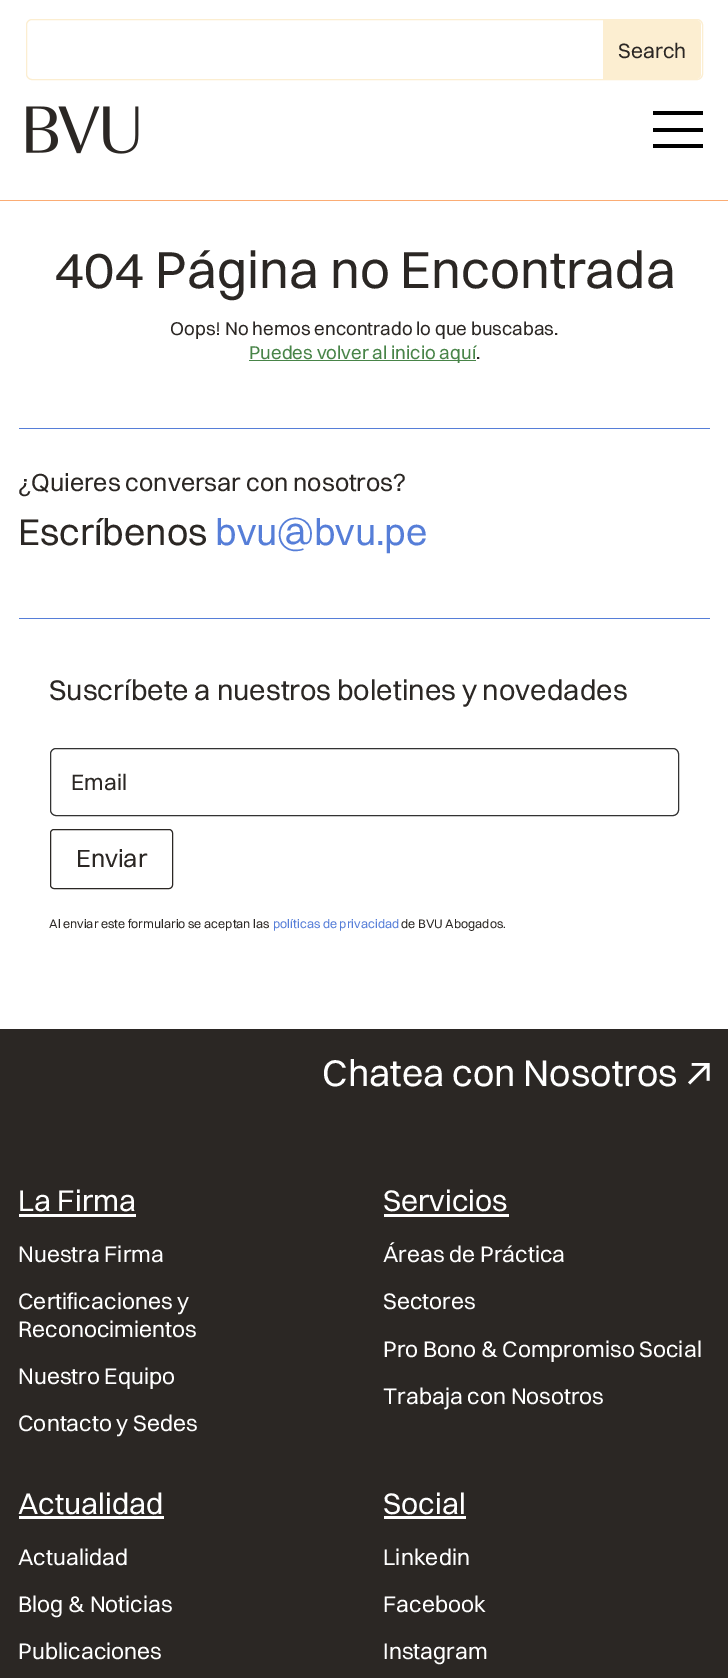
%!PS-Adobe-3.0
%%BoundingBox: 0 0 728 1678
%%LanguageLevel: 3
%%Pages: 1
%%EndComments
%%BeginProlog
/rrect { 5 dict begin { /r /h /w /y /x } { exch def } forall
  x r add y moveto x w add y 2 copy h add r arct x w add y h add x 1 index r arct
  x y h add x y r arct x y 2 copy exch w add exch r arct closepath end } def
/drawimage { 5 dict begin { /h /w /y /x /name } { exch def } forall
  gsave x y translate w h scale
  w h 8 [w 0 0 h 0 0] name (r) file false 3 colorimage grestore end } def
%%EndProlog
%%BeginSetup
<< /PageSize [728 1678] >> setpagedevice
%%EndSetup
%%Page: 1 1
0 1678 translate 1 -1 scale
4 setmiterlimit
1 setgray
0 0 728 1678 rectfill
0.988 0.933 0.82 setrgbcolor
26.5 19.5 676 60 5.5 rrect stroke
newpath 603 20 moveto 696 20 lineto 699 20 701 22 701 25 curveto 701 74 lineto 701 77 699 79 696 79 curveto 603 79 lineto closepath fill
(images/1.raw) 26 106 113 48 drawimage
0 setgray
653 111 50 4 rectfill
653 128 50 4 rectfill
653 144 50 4 rectfill
0.984 0.675 0.455 setrgbcolor
0 200 728 1 rectfill
0.282 0.518 0.282 setrgbcolor
249 360 227 1 rectfill
0.337 0.494 0.847 setrgbcolor
19 428 691 1 rectfill
19 618 691 1 rectfill
0.2 setgray
50.5 748.5 628 67 5.5 rrect stroke
0.169 0.153 0.141 setrgbcolor
50.5 829.5 122 59 3.5 rrect stroke
0 1029 728 649 rectfill
(images/2.raw) 688 1063 22 22 drawimage
1 setgray
19 1214 117 3 rectfill
384 1214 125 3 rectfill
19 1516 145 3 rectfill
384 1516 82 3 rectfill
/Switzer-Regular [21 0 0 -21 0 0] selectfont
0.169 0.153 0.141 setrgbcolor
618 58 moveto (Search) show
/Switzer-Regular [52.5 0 0 -52.5 0 0] selectfont
54 288 moveto (404 Página no Encontrada) show
/Switzer-Regular [18.75 0 0 -18.75 0 0] selectfont
170 335 moveto (Oops! No hemos encontrado lo que buscabas.) show
0.282 0.518 0.282 setrgbcolor
249 359 moveto (Puedes volver al inicio aquí) show
0.169 0.153 0.141 setrgbcolor
476 359 moveto (.) show
/Switzer-Regular [25 0 0 -25 0 0] selectfont
18 491 moveto (¿Quieres conversar con nosotros?) show
/Switzer-Regular [37.5 0 0 -37.5 0 0] selectfont
18 545 moveto (Escríbenos) show
0.337 0.494 0.847 setrgbcolor
215 545 moveto (bvu@bvu.pe) show
/Switzer-Regular [28.75 0 0 -28.75 0 0] selectfont
0.169 0.153 0.141 setrgbcolor
49 700 moveto (Suscríbete a nuestros boletines y novedades) show
/Switzer-Regular [22.5 0 0 -22.5 0 0] selectfont
71 790 moveto (Email) show
/Switzer-Regular [25 0 0 -25 0 0] selectfont
76 867 moveto (Enviar) show
/Switzer-Regular [12.5 0 0 -12.5 0 0] selectfont
49 928 moveto (Al enviar este formulario se aceptan las) show
0.337 0.494 0.847 setrgbcolor
273 928 moveto (políticas de privacidad) show
0.169 0.153 0.141 setrgbcolor
401 928 moveto (de BVU Abogados.) show
/Switzer-Regular [37.5 0 0 -37.5 0 0] selectfont
1 setgray
322 1086 moveto (Chatea con Nosotros) show
/Switzer-Regular [30 0 0 -30 0 0] selectfont
18 1211 moveto (La Firma) show
/Switzer-Regular [22.75 0 0 -22.75 0 0] selectfont
18 1262 moveto (Nuestra Firma) show
18 1309 moveto (Certificaciones y) show
18 1337 moveto (Reconocimientos) show
18 1384 moveto (Nuestro Equipo) show
18 1431 moveto (Contacto y Sedes) show
/Switzer-Regular [30 0 0 -30 0 0] selectfont
383 1211 moveto (Servicios) show
/Switzer-Regular [22.75 0 0 -22.75 0 0] selectfont
383 1262 moveto (Áreas de Práctica) show
383 1309 moveto (Sectores) show
383 1357 moveto (Pro Bono & Compromiso Social) show
383 1404 moveto (Trabaja con Nosotros) show
/Switzer-Regular [30 0 0 -30 0 0] selectfont
18 1514 moveto (Actualidad) show
/Switzer-Regular [22.75 0 0 -22.75 0 0] selectfont
18 1565 moveto (Actualidad) show
18 1612 moveto (Blog & Noticias) show
18 1659 moveto (Publicaciones) show
/Switzer-Regular [30 0 0 -30 0 0] selectfont
383 1514 moveto (Social) show
/Switzer-Regular [22.75 0 0 -22.75 0 0] selectfont
383 1565 moveto (Linkedin) show
383 1612 moveto (Facebook) show
383 1659 moveto (Instagram) show
showpage
%%EOF
